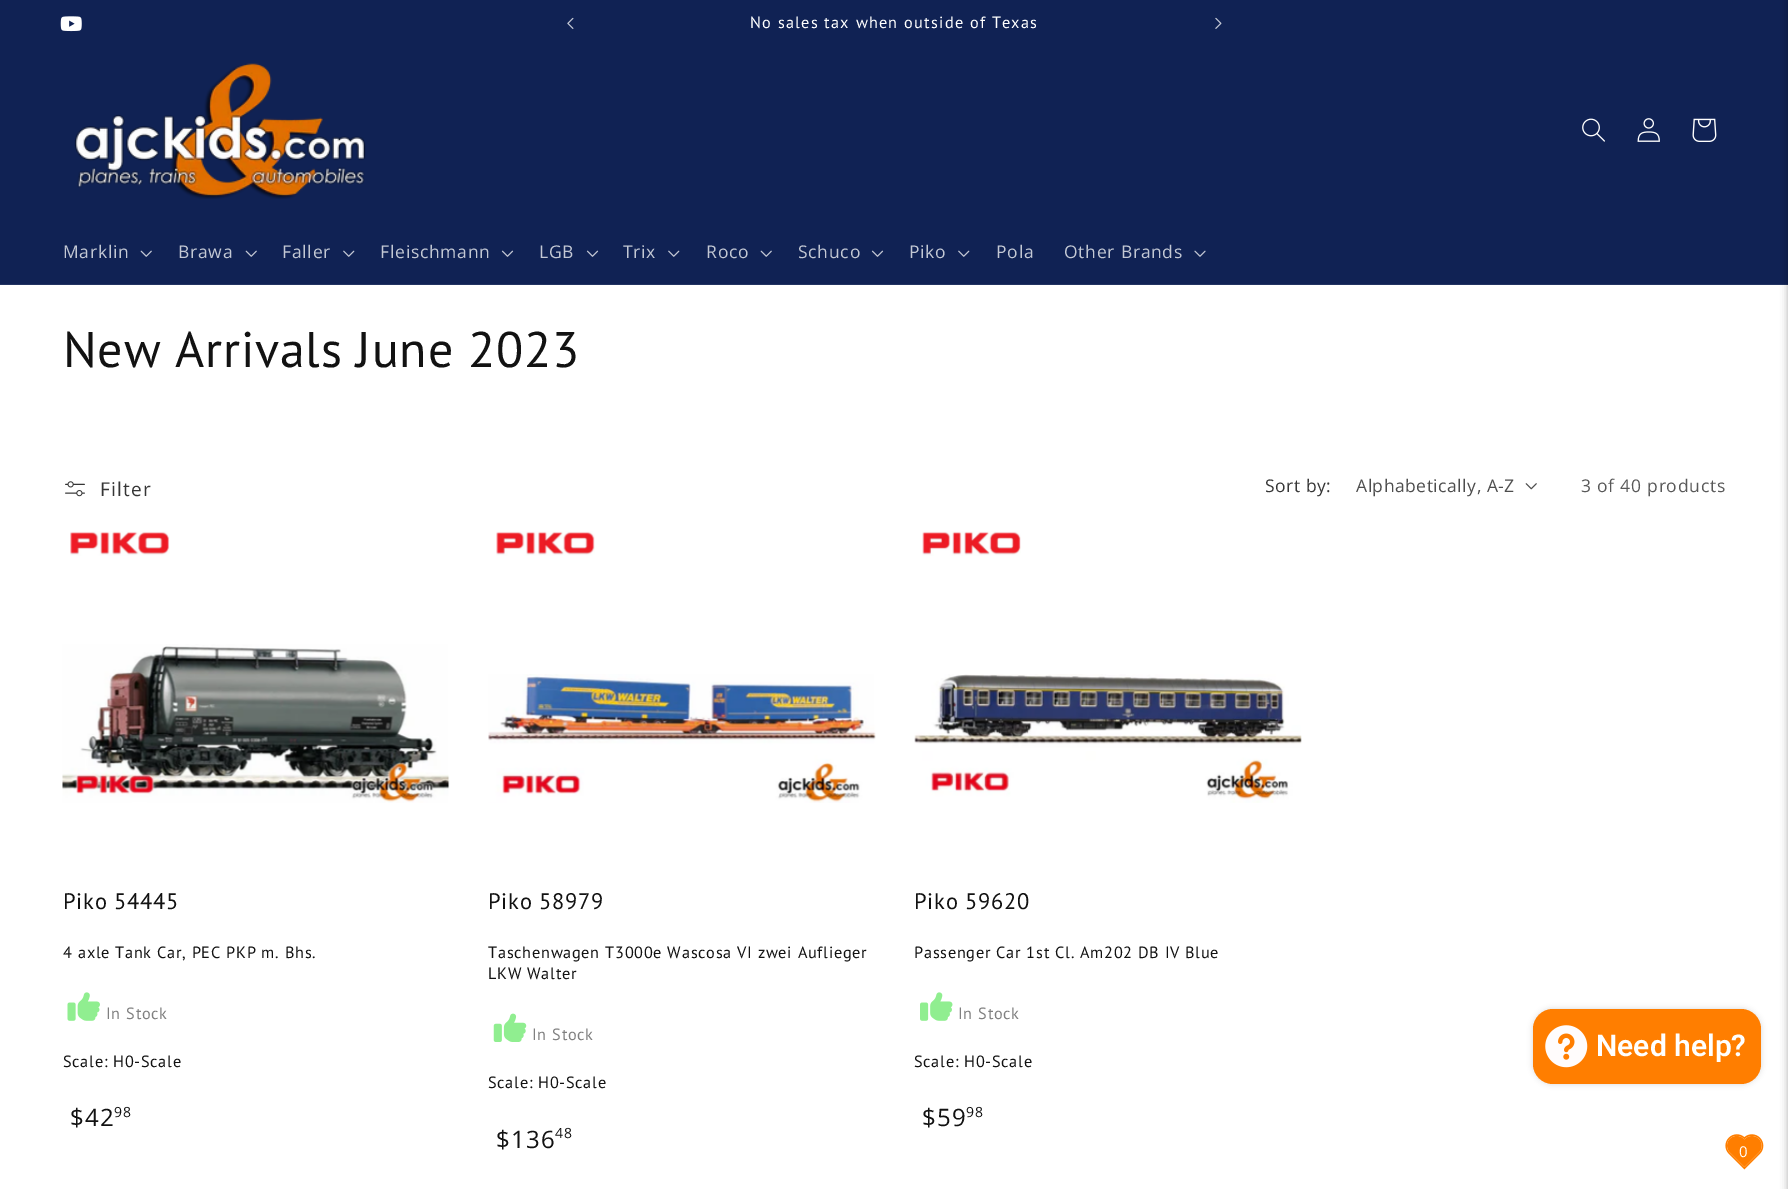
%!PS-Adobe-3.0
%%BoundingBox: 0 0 1788 1189
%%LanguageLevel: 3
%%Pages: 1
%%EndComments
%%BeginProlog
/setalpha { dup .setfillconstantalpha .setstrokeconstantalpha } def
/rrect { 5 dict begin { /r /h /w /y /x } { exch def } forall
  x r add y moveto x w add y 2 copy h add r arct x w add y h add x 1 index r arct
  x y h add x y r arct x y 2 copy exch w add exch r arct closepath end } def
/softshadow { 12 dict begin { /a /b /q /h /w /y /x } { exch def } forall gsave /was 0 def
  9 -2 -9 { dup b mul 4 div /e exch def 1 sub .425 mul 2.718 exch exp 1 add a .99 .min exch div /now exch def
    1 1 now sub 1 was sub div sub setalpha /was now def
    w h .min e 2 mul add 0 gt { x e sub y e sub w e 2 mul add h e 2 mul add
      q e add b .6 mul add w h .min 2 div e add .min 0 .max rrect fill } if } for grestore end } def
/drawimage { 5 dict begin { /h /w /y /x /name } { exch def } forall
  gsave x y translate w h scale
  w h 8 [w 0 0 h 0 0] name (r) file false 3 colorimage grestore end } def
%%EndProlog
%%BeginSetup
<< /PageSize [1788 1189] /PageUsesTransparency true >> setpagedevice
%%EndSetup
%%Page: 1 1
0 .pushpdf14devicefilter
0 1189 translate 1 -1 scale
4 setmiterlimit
1 setgray
0 0 1788 1189 rectfill
0.063 0.133 0.329 setrgbcolor
0 0 1788 284 rectfill
(images/1.raw) 60 16 22 16 drawimage
(images/2.raw) 567 17 7 12 drawimage
(images/3.raw) 1215 17 7 12 drawimage
0.137 0.204 0.384 setrgbcolor
0 284 1788 1 rectfill
(images/4.raw) 74 63 292 136 drawimage
(images/5.raw) 1582 118 23 24 drawimage
(images/6.raw) 1637 118 23 24 drawimage
(images/7.raw) 1692 118 25 24 drawimage
(images/8.raw) 140 250 12 7 drawimage
(images/8.raw) 245 250 12 7 drawimage
(images/9.raw) 343 250 12 7 drawimage
(images/10.raw) 501 250 13 7 drawimage
(images/10.raw) 586 250 13 7 drawimage
(images/9.raw) 668 250 12 7 drawimage
(images/8.raw) 760 250 12 7 drawimage
(images/10.raw) 871 250 13 7 drawimage
(images/9.raw) 958 250 12 7 drawimage
(images/11.raw) 1194 250 12 7 drawimage
(images/12.raw) 65 481 20 16 drawimage
(images/13.raw) 1525 483 12 7 drawimage
(images/14.raw) 70 531 100 25 drawimage
(images/15.raw) 62 644 388 159 drawimage
(images/16.raw) 67 992 33 29 drawimage
(images/17.raw) 496 531 99 25 drawimage
(images/18.raw) 488 674 388 129 drawimage
(images/19.raw) 493 1013 34 29 drawimage
(images/20.raw) 922 531 99 25 drawimage
(images/21.raw) 914 674 388 129 drawimage
(images/22.raw) 920 992 33 29 drawimage
0 setgray
1533 1009 228 75 20 3 0.15 softshadow
1 0.494 0 setrgbcolor
1533 1009 228 75 20 rrect fill
(images/23.raw) 1545 1025 43 43 drawimage
(images/24.raw) 1725 1134 39 36 drawimage
0 setgray
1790 0 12 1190 0 4.5 0.5 softshadow
/PTSans-Regular [16.25 0 0 -16.25 0 0] selectfont
1 setgray
750 28 moveto 1.25 0 (No sales tax when outside of Texas) ashow
/OpenSans-Regular [17.5 0 0 -17.5 0 0] selectfont
0.765 0.784 0.831 setrgbcolor
63 258 moveto 0.75 0 (Marklin) ashow
178 258 moveto 0.75 0 (Brawa) ashow
282 258 moveto 0.75 0 (Faller) ashow
380 258 moveto 0.75 0 (Fleischmann) ashow
539 258 moveto 0.75 0 (LGB) ashow
623 258 moveto 0.75 0 (Trix) ashow
706 258 moveto 0.75 0 (Roco) ashow
798 258 moveto 0.75 0 (Schuco) ashow
909 258 moveto 0.75 0 (Piko) ashow
996 258 moveto 0.75 0 (Pola) ashow
1064 258 moveto 0.75 0 (Other Brands) ashow
/PTSans-Regular [50 0 0 -50 0 0] selectfont
0.071 setgray
63 367 moveto 0.75 0 (New Arrivals June 2023) ashow
/OpenSans-Regular [19 0 0 -19 0 0] selectfont
0.212 setgray
100 496 moveto 1.25 0 (Filter) ashow
/OpenSans-Regular [17.5 0 0 -17.5 0 0] selectfont
1265 492 moveto 0.5 0 (Sort by:) ashow
0.302 setgray
1356 492 moveto 0.5 0 (Alphabetically, A-Z) ashow
0.349 setgray
1581 492 moveto 0.75 0 (3 of 40 products) ashow
/PTSans-Regular [22.5 0 0 -22.5 0 0] selectfont
0.071 setgray
63 909 moveto 0.75 0 (Piko 54445) ashow
/PTSans-Regular [16.25 0 0 -16.25 0 0] selectfont
63 958 moveto 0.75 0 (4 axle Tank Car, PEC PKP m. Bhs.) ashow
0.502 setgray
106 1019 moveto 0.75 0 (In Stock) ashow
0.071 setgray
63 1067 moveto 0.75 0 (Scale: H0-Scale) ashow
/OpenSans-Regular [24 0 0 -24 0 0] selectfont
70 1126 moveto 1.25 0 ($42) ashow
/OpenSans-Regular [14 0 0 -14 0 0] selectfont
114 1117 moveto 1.25 0 (98) ashow
/PTSans-Regular [22.5 0 0 -22.5 0 0] selectfont
488 909 moveto 0.75 0 (Piko 58979) ashow
/PTSans-Regular [16.25 0 0 -16.25 0 0] selectfont
488 958 moveto 0.75 0 (Taschenwagen T3000e Wascosa VI zwei Auflieger) ashow
488 979 moveto 0.75 0 (LKW Walter) ashow
0.502 setgray
532 1040 moveto 0.75 0 (In Stock) ashow
0.071 setgray
488 1088 moveto 0.75 0 (Scale: H0-Scale) ashow
/OpenSans-Regular [24 0 0 -24 0 0] selectfont
496 1148 moveto 1.25 0 ($136) ashow
/OpenSans-Regular [14 0 0 -14 0 0] selectfont
555 1138 moveto 1.25 0 (48) ashow
/PTSans-Regular [22.5 0 0 -22.5 0 0] selectfont
914 909 moveto 0.75 0 (Piko 59620) ashow
/PTSans-Regular [16.25 0 0 -16.25 0 0] selectfont
914 958 moveto 0.75 0 (Passenger Car 1st Cl. Am202 DB IV Blue) ashow
0.502 setgray
958 1019 moveto 0.75 0 (In Stock) ashow
0.071 setgray
914 1067 moveto 0.75 0 (Scale: H0-Scale) ashow
/OpenSans-Regular [24 0 0 -24 0 0] selectfont
922 1126 moveto 1.25 0 ($59) ashow
/OpenSans-Regular [14 0 0 -14 0 0] selectfont
966 1117 moveto 1.25 0 (98) ashow
/Roboto-SemiBold [30 0 0 -30 0 0] selectfont
1 setgray
1596 1056 moveto (Need help?) show
/OpenSans-Regular [15 0 0 -15 0 0] selectfont
1739 1157 moveto 0.75 0 (0) ashow
.poppdf14devicefilter showpage
%%EOF
